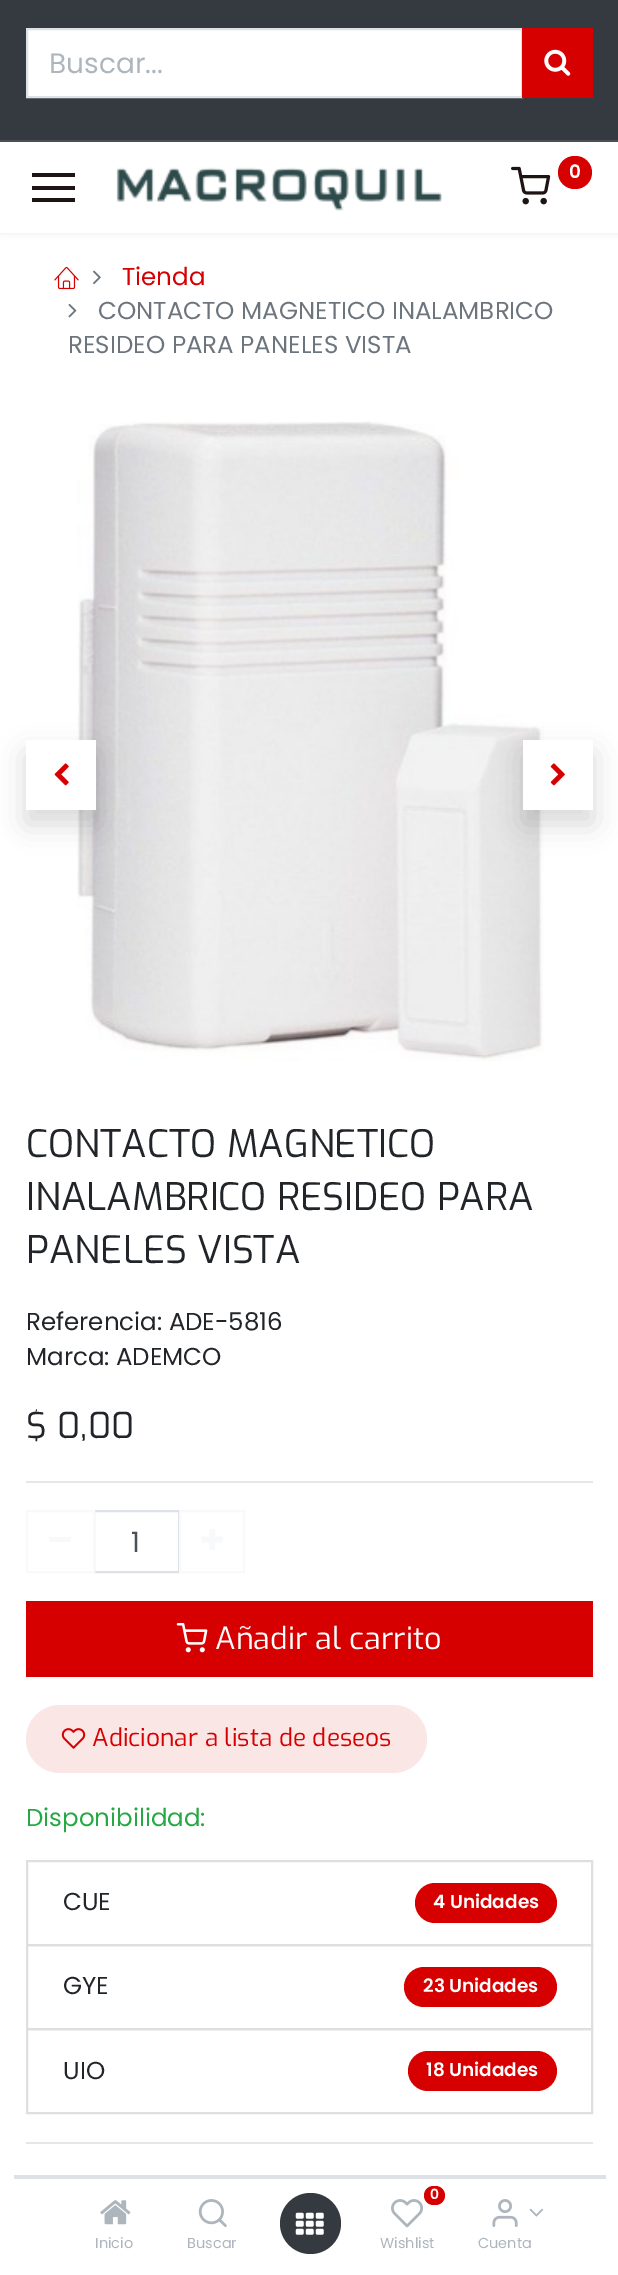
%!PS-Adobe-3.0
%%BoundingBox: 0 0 618 2275
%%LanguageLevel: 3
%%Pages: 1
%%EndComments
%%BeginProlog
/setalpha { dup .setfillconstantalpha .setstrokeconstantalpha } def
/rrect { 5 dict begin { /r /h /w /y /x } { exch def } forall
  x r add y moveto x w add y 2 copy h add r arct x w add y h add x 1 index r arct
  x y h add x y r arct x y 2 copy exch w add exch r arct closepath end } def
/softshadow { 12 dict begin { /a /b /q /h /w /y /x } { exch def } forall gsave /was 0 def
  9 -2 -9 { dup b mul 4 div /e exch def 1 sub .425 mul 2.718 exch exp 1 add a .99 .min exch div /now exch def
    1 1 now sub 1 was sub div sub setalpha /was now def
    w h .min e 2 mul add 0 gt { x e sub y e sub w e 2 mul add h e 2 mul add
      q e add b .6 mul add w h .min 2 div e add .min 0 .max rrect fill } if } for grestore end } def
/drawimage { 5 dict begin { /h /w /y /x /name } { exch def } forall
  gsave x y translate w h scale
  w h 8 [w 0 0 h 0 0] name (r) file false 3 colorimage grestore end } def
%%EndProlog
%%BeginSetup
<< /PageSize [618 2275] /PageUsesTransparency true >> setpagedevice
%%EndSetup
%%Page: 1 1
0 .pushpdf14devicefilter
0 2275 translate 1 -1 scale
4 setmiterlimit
1 setgray
0 0 618 2275 rectfill
0.204 0.227 0.251 setrgbcolor
0 0 618 140 rectfill
0.298 0.322 0.341 setrgbcolor
0 140 618 2 rectfill
1 setgray
newpath 27 29 moveto 522 29 lineto 522 97 lineto 27 97 lineto closepath gsave fill grestore
0.871 0.886 0.902 setrgbcolor
2 setlinewidth
stroke
0.839 0 0 setrgbcolor
522 28 71 70 rectfill
(images/1.raw) 544 49 27 27 drawimage
0 setgray
0 142 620 91 0 3.5 0.07 softshadow
1 setgray
0 142 618 91 rectfill
0.122 0.078 0.078 setrgbcolor
32 173 43 4 rectfill
32 186 43 4 rectfill
32 198 43 4 rectfill
(images/2.raw) 116 167 326 44 drawimage
(images/3.raw) 511 166 40 39 drawimage
0.839 0 0 setrgbcolor
558 156 34 33 16.5 rrect fill
(images/4.raw) 54 266 25 24 drawimage
(images/5.raw) 93 270 8 15 drawimage
(images/6.raw) 68 303 9 15 drawimage
(images/8.raw) 77 421 467 640 drawimage
0 setgray
26 754 70 70 0 14 0.15 softshadow
1 setgray
26 740 70 70 rectfill
(images/7.raw) 54 763 15 23 drawimage
0 setgray
523 754 70 70 0 14 0.15 softshadow
1 setgray
523 740 70 70 rectfill
(images/9.raw) 550 763 15 23 drawimage
0.902 setgray
26 1481 567 2 rectfill
0.871 0.886 0.902 setrgbcolor
94 1511 85 61 rectstroke
0.973 0.976 0.98 setrgbcolor
27 1511 67 61 rectstroke
49 1537 22 5 rectfill
180 1511 64 61 rectstroke
(images/10.raw) 201 1529 22 21 drawimage
0.839 0 0 setrgbcolor
26 1601 567 76 rectfill
(images/11.raw) 176 1623 32 30 drawimage
0.984 0.902 0.902 setrgbcolor
26 1705 401 68 34 rrect fill
(images/12.raw) 61 1728 25 21 drawimage
0.875 setgray
27 1861 565 84 rectstroke
0.839 0 0 setrgbcolor
415 1883 142 40 20 rrect fill
0.875 setgray
27 1945 565 84 rectstroke
0.839 0 0 setrgbcolor
404 1967 153 40 20 rrect fill
0.875 setgray
27 2029 565 84 rectstroke
0.839 0 0 setrgbcolor
408 2051 149 40 20 rrect fill
0.902 setgray
26 2142 567 2 rectfill
0.871 0.886 0.902 setrgbcolor
14 2175 592 4 rectfill
(images/13.raw) 100 2200 31 25 drawimage
(images/14.raw) 198 2199 29 28 drawimage
0.204 0.227 0.251 setrgbcolor
newpath 310.5 2223.5 30.5 0 360 arc closepath fill
(images/15.raw) 295 2212 29 23 drawimage
0.839 0 0 setrgbcolor
424 2186 21 19 9.5 rrect fill
(images/16.raw) 391 2199 33 29 drawimage
(images/17.raw) 492 2199 26 28 drawimage
(images/18.raw) 529 2208 15 9 drawimage
/Poppins-Regular [28 0 0 -28 0 0] selectfont
0.678 0.71 0.741 setrgbcolor
49 73 moveto (Buscar...) show
/Poppins-SemiBold [18.5 0 0 -18.5 0 0] selectfont
1 setgray
569 178 moveto (0) show
/Poppins-Regular [24.5 0 0 -24.5 0 0] selectfont
0.839 0 0 setrgbcolor
122 285 moveto (Tienda) show
0.424 0.459 0.49 setrgbcolor
98 319 moveto (CONTACTO MAGNETICO INALAMBRICO) show
68 353 moveto (RESIDEO PARA PANELES VISTA) show
/Exo-Regular [37.9 0 0 -37.9 0 0] selectfont
0.129 0.145 0.161 setrgbcolor
26 1157 moveto (CONTACTO MAGNETICO) show
26 1210 moveto (INALAMBRICO RESIDEO PARA) show
26 1263 moveto (PANELES VISTA) show
/Poppins-Regular [24.5 0 0 -24.5 0 0] selectfont
26 1330 moveto (Referencia: ADE-5816) show
26 1365 moveto (Marca: ADEMCO) show
/Exo-Regular [35.5 0 0 -35.5 0 0] selectfont
26 1438 moveto ($ 0,00) show
/Poppins-Regular [28 0 0 -28 0 0] selectfont
0.286 0.314 0.341 setrgbcolor
131 1552 moveto (1) show
/Exo-Regular [30.5 0 0 -30.5 0 0] selectfont
1 setgray
215 1649 moveto (Añadir al carrito) show
/Exo-Regular [24.5 0 0 -24.5 0 0] selectfont
0.839 0 0 setrgbcolor
92 1746 moveto (Adicionar a lista de deseos) show
/Poppins-Regular [24.5 0 0 -24.5 0 0] selectfont
0.157 0.655 0.271 setrgbcolor
26 1826 moveto (Disponibilidad:) show
0.129 0.145 0.161 setrgbcolor
63 1910 moveto (CUE) show
/Poppins-SemiBold [18.5 0 0 -18.5 0 0] selectfont
1 setgray
433 1908 moveto (4 Unidades) show
/Poppins-Regular [24.5 0 0 -24.5 0 0] selectfont
0.129 0.145 0.161 setrgbcolor
63 1994 moveto (GYE) show
/Poppins-SemiBold [18.5 0 0 -18.5 0 0] selectfont
1 setgray
423 1992 moveto (23 Unidades) show
/Poppins-Regular [24.5 0 0 -24.5 0 0] selectfont
0.129 0.145 0.161 setrgbcolor
63 2079 moveto (UIO) show
/Poppins-SemiBold [18.5 0 0 -18.5 0 0] selectfont
1 setgray
426 2076 moveto (18 Unidades) show
/Poppins-Regular [14.5 0 0 -14.5 0 0] selectfont
0.678 0.71 0.741 setrgbcolor
95 2248 moveto (Inicio) show
187 2248 moveto (Buscar) show
/Poppins-SemiBold [14 0 0 -14 0 0] selectfont
1 setgray
430 2199 moveto (0) show
/Poppins-Regular [14.5 0 0 -14.5 0 0] selectfont
0.678 0.71 0.741 setrgbcolor
380 2248 moveto (Wishlist) show
478 2248 moveto (Cuenta) show
.poppdf14devicefilter showpage
%%EOF
